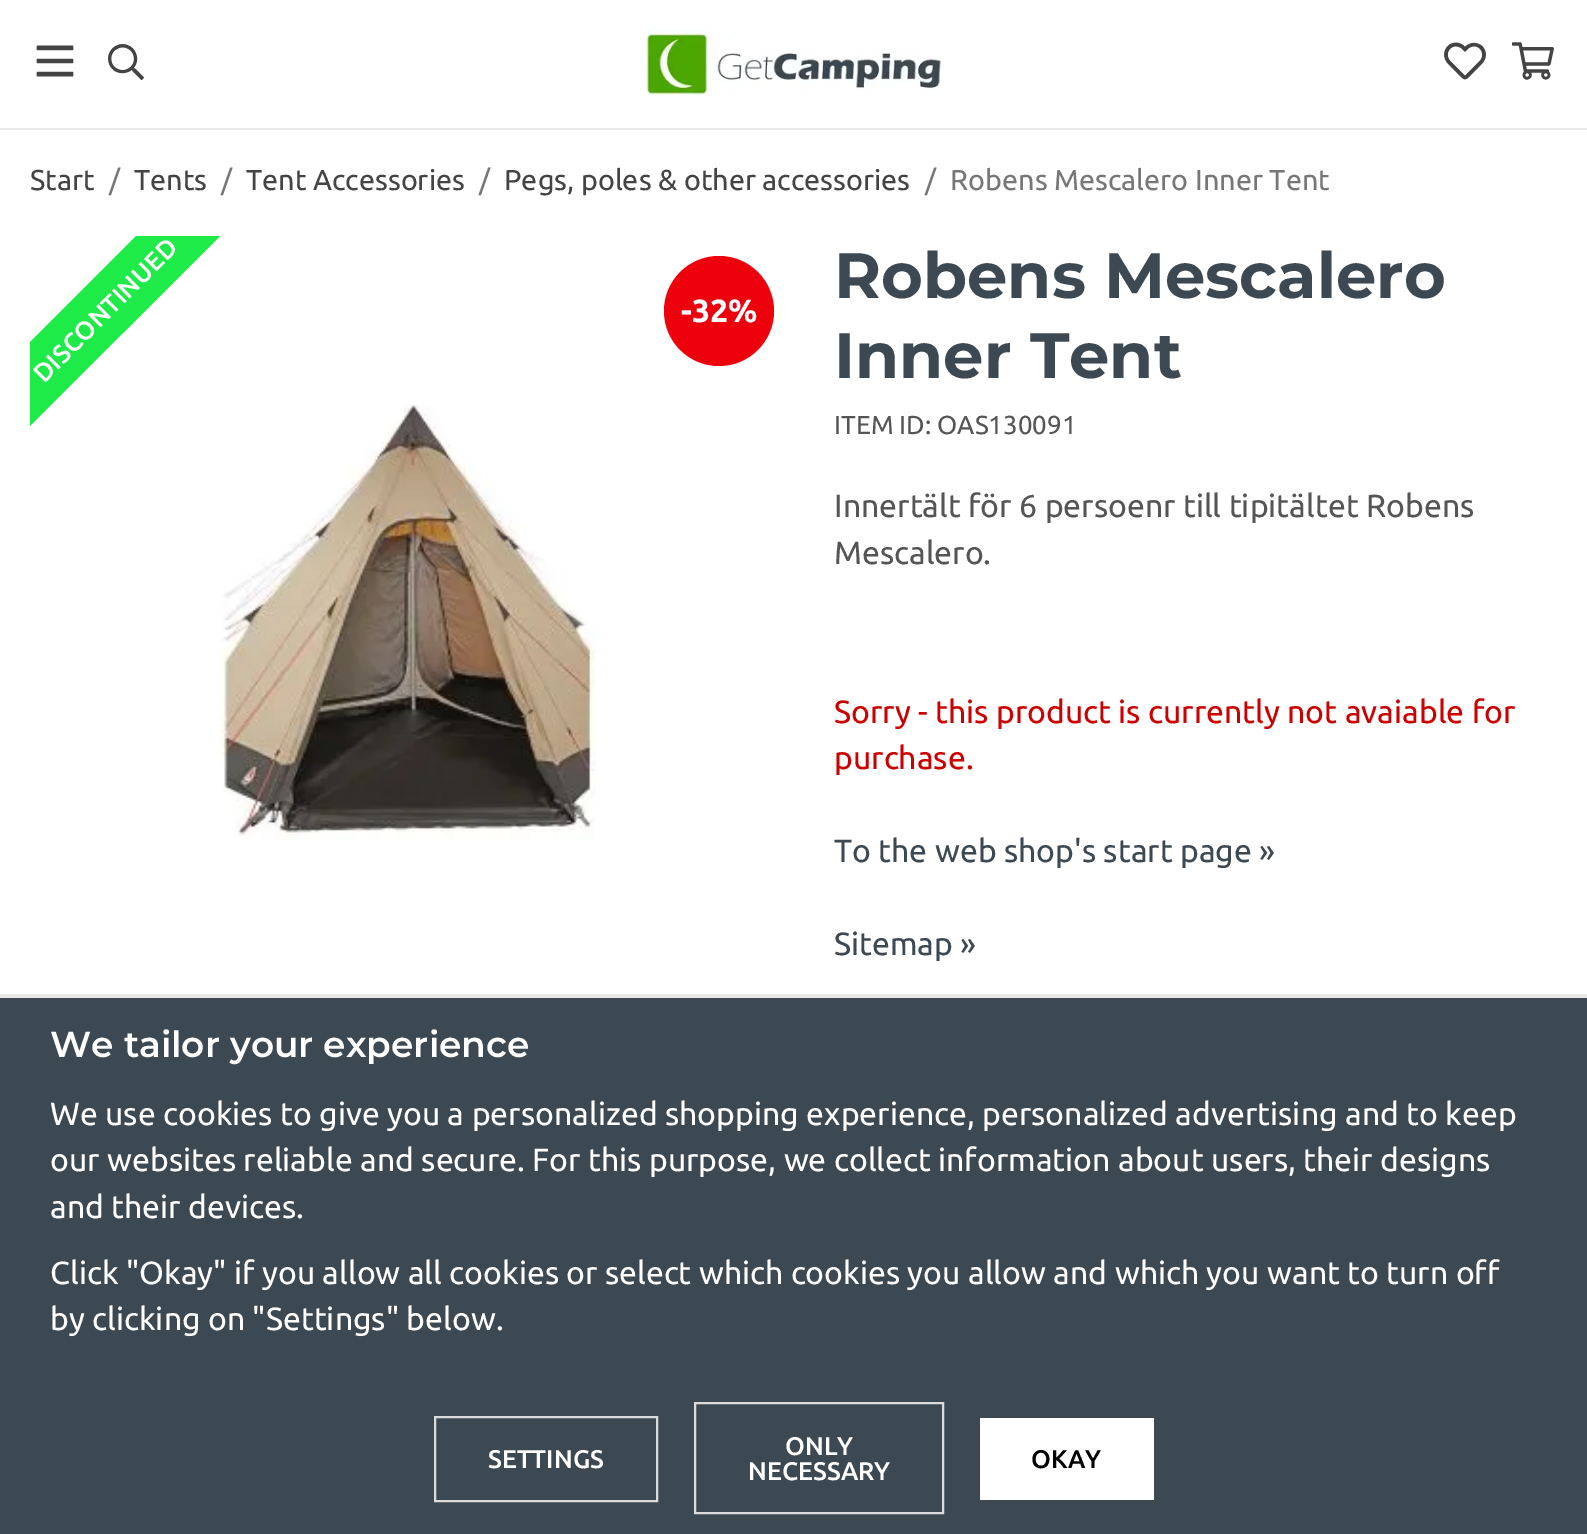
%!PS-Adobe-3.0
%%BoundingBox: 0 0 1587 1534
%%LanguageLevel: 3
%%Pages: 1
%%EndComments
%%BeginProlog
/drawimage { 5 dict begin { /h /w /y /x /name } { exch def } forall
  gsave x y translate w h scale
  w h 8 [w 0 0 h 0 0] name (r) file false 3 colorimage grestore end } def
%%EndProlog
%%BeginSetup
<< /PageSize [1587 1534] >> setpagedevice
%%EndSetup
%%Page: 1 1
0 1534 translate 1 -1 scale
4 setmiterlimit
1 setgray
0 0 1587 1534 rectfill
0.914 setgray
0 128 1587 2 rectfill
(images/1.raw) 36 45 38 32 drawimage
(images/2.raw) 108 44 36 36 drawimage
(images/3.raw) 646 28 297 68 drawimage
(images/4.raw) 1444 42 42 38 drawimage
(images/5.raw) 1512 42 42 38 drawimage
gsave
30 236 764 954 rectclip
0.118 0.922 0.278 setrgbcolor
newpath -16 388 moveto 182 190 lineto 224 232 lineto 26 430 lineto closepath fill
grestore
0.929 0.004 0.047 setrgbcolor
newpath 719 311 55 0 360 arc closepath fill
(images/6.raw) 220 404 376 436 drawimage
0.235 0.286 0.322 setrgbcolor
0 998 1587 536 rectfill
0.914 setgray
0 994 1587 4 rectfill
0.863 setgray
2 setlinewidth
435 1417 222 84 rectstroke
695 1403 248 110 rectstroke
1 setgray
980 1418 174 82 rectfill
/Ubuntu-Regular [28.75 0 0 -28.75 0 0] selectfont
0.267 setgray
30 190 moveto (Start) show
0.467 setgray
109 190 moveto (/) show
0.267 setgray
134 190 moveto (Tents) show
0.467 setgray
221 190 moveto (/) show
0.267 setgray
246 190 moveto (Tent Accessories) show
0.467 setgray
479 190 moveto (/) show
0.267 setgray
504 190 moveto (Pegs, poles & other accessories) show
0.467 setgray
925 190 moveto (/) show
950 190 moveto (Robens Mescalero Inner Tent) show
/Ubuntu-Medium [26 0 0 -26 0 0] selectfont
1 setgray
gsave 44 384 translate -45 rotate 0 0 moveto (DISCONTINUED) show grestore
/Ubuntu-Bold [32 0 0 -32 0 0] selectfont
681 322 moveto (-32%) show
/Montserrat-Bold [64 0 0 -64 0 0] selectfont
0.239 0.286 0.322 setrgbcolor
834 298 moveto (Robens Mescalero) show
834 378 moveto (Inner Tent) show
/Ubuntu-Regular [26 0 0 -26 0 0] selectfont
0.333 setgray
834 434 moveto (ITEM ID: OAS130091) show
/Ubuntu-Regular [32 0 0 -32 0 0] selectfont
834 517 moveto (Innertält för 6 persoenr till tipitältet Robens) show
834 564 moveto (Mescalero.) show
0.8 0 0 setrgbcolor
834 723 moveto (Sorry - this product is currently not avaiable for) show
834 769 moveto (purchase.) show
0.239 0.286 0.322 setrgbcolor
834 862 moveto (To the web shop's start page ») show
834 955 moveto (Sitemap ») show
/Montserrat-SemiBold [36 0 0 -36 0 0] selectfont
1 setgray
50 1057 moveto (We tailor your experience) show
/Ubuntu-Regular [32 0 0 -32 0 0] selectfont
50 1125 moveto (We use cookies to give you a personalized shopping experience, personalized advertising and to keep) show
50 1171 moveto (our websites reliable and secure. For this purpose, we collect information about users, their designs) show
50 1218 moveto (and their devices.) show
50 1284 moveto (Click "Okay" if you allow all cookies or select which cookies you allow and which you want to turn off) show
50 1330 moveto (by clicking on "Settings" below.) show
/Ubuntu-Medium [25.5 0 0 -25.5 0 0] selectfont
488 1468 moveto (SETTINGS) show
785 1455 moveto (ONLY) show
748 1480 moveto (NECESSARY) show
0 setgray
1031 1468 moveto (OKAY) show
showpage
%%EOF
